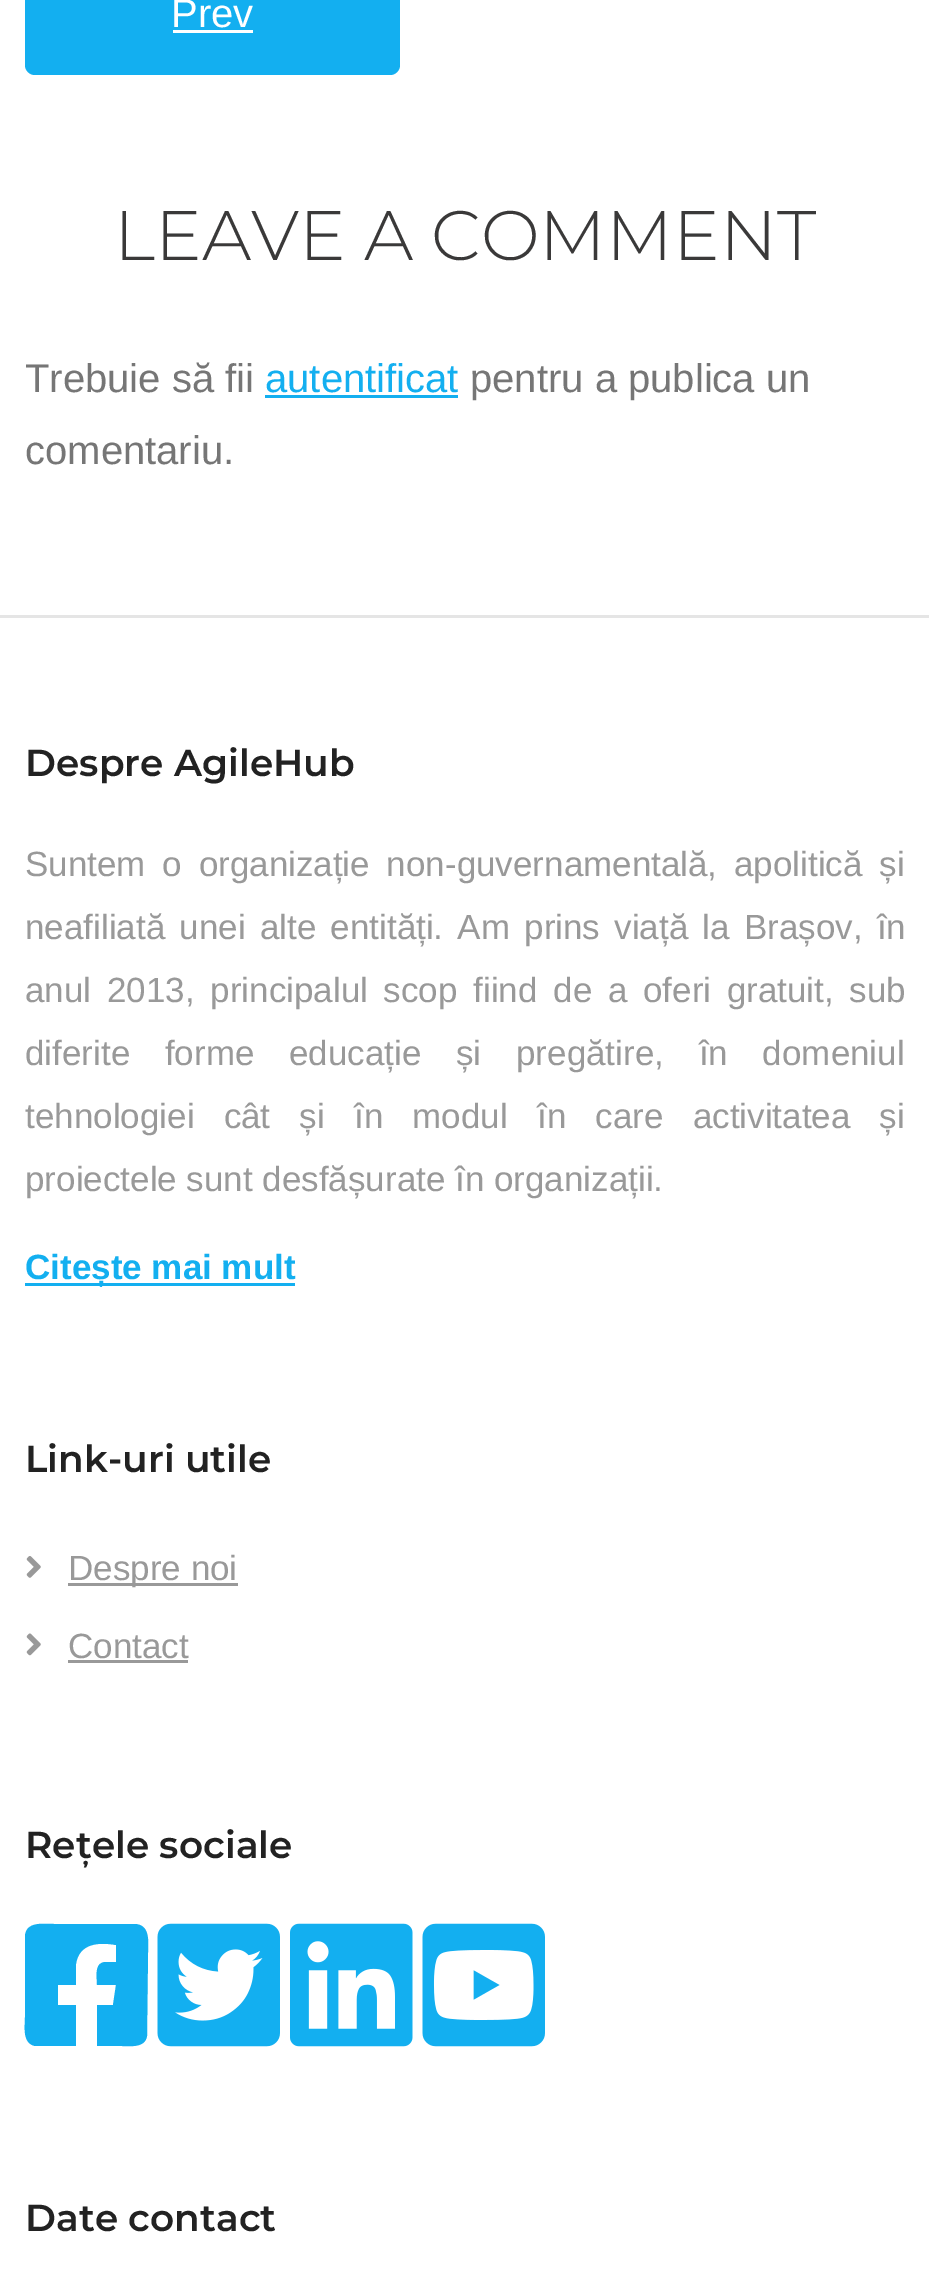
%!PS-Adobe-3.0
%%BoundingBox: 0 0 929 2284
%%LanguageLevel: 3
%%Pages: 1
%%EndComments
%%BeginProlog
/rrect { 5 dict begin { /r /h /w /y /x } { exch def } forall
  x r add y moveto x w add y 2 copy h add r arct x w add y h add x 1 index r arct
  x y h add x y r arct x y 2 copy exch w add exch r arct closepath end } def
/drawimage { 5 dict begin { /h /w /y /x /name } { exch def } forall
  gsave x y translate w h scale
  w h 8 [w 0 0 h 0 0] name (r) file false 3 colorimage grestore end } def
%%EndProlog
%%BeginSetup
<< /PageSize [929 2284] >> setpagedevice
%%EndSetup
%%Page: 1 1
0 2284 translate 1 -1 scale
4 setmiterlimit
1 setgray
0 0 929 2284 rectfill
0.075 0.686 0.941 setrgbcolor
25 -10 375 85 10 rrect fill
1 setgray
173 30 80 3 rectfill
0.075 0.686 0.941 setrgbcolor
265 395 193 3 rectfill
0.898 setgray
0 615 929 3 rectfill
0.075 0.686 0.941 setrgbcolor
25 1283 270 3 rectfill
(images/1.raw) 26 1556 15 22 drawimage
0.6 setgray
68 1583 170 3 rectfill
(images/2.raw) 26 1633 15 23 drawimage
68 1660 120 3 rectfill
0.075 0.686 0.941 setrgbcolor
newpath 134 1924 moveto 151 1924 148 1943 148 1953 curveto 147 2036 lineto 145 2048 131 2046 122 2046 curveto 97 2046 lineto 97 2005 lineto 113 2005 lineto 116 1985 lineto 97 1985 lineto 97 1977 94 1963 105 1962 curveto 116 1962 lineto 116 1945 lineto 99 1942 79 1943 76 1964 curveto 76 1985 lineto 58 1985 lineto 58 2005 lineto 76 2005 lineto 76 2046 lineto 35 2046 lineto 22 2043 25 2027 25 2017 curveto 25 1936 lineto 26 1921 44 1924 54 1924 curveto closepath fill
(images/3.raw) 157 1923 123 124 drawimage
(images/4.raw) 290 1923 123 124 drawimage
(images/5.raw) 422 1923 123 124 drawimage
/LiberationSans-Regular [40 0 0 -40 0 0] selectfont
1 setgray
171 27 moveto (Prev) show
/Montserrat-Light [70 0 0 -70 0 0] selectfont
0.227 0.224 0.224 setrgbcolor
114 260 moveto (LEAVE A COMMENT) show
/LiberationSans-Regular [40 0 0 -40 0 0] selectfont
0.463 setgray
25 392 moveto (Trebuie să fii) show
0.075 0.686 0.941 setrgbcolor
265 392 moveto (autentificat) show
0.463 setgray
470 392 moveto (pentru a publica un) show
25 464 moveto (comentariu.) show
/Montserrat-SemiBold [37.5 0 0 -37.5 0 0] selectfont
0.133 setgray
25 776 moveto (Despre AgileHub) show
/LiberationSans-Regular [35 0 0 -35 0 0] selectfont
0.6 setgray
25 876 moveto 7 0 32 (Suntem o organizație non-guvernamentală, apolitică și) widthshow
25 939 moveto 4.5 0 32 (neafiliată unei alte entități. Am prins viață la Brașov, în) widthshow
25 1002 moveto 6 0 32 (anul 2013, principalul scop fiind de a oferi gratuit, sub) widthshow
25 1065 moveto 25 0 32 (diferite forme educație și pregătire, în domeniul) widthshow
25 1128 moveto 19.5 0 32 (tehnologiei cât și în modul în care activitatea și) widthshow
25 1191 moveto (proiectele sunt desfășurate în organizații.) show
/LiberationSans-Bold [35 0 0 -35 0 0] selectfont
0.075 0.686 0.941 setrgbcolor
25 1279 moveto (Citește mai mult) show
/Montserrat-SemiBold [37.5 0 0 -37.5 0 0] selectfont
0.133 setgray
25 1472 moveto (Link-uri utile) show
/LiberationSans-Regular [35 0 0 -35 0 0] selectfont
0.6 setgray
68 1580 moveto (Despre noi) show
68 1658 moveto (Contact) show
/Montserrat-SemiBold [37.5 0 0 -37.5 0 0] selectfont
0.133 setgray
25 1858 moveto (Rețele sociale) show
25 2231 moveto (Date contact) show
showpage
%%EOF
